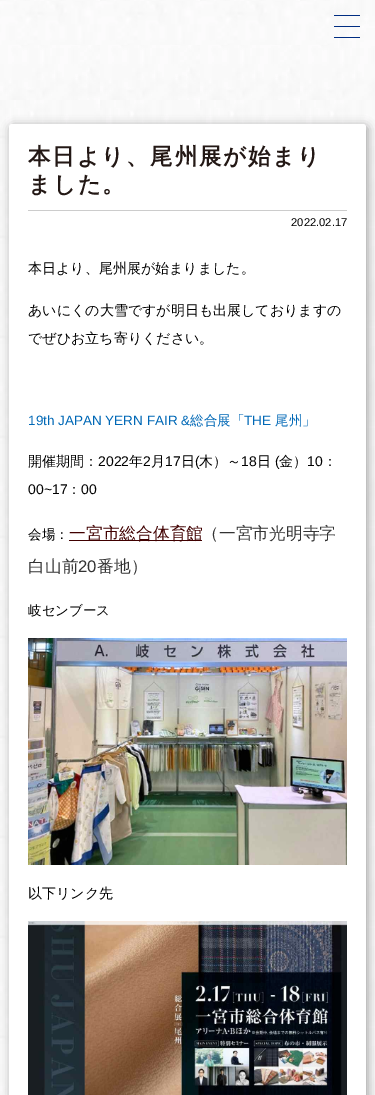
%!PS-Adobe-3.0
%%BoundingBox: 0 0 375 1095
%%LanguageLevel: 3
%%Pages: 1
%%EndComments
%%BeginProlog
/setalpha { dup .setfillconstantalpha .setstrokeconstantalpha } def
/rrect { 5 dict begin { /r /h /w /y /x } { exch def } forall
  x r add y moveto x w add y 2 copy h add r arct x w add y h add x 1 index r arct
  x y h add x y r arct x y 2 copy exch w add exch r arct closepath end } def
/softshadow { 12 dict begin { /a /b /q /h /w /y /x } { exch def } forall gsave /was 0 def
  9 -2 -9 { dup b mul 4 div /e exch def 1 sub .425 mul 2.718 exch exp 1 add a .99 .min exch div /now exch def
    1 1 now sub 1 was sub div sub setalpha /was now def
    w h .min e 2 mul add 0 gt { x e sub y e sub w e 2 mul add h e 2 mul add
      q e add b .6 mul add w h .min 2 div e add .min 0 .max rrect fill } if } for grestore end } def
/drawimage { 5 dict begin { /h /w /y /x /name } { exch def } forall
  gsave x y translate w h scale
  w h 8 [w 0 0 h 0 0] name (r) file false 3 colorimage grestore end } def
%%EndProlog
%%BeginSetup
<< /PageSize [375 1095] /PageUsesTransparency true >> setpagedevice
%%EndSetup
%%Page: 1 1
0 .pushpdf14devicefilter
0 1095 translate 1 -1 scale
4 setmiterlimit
1 setgray
0 0 375 1095 rectfill
(images/1.raw) 0 0 375 1095 drawimage
(images/2.raw) 0 1 334 44 drawimage
0 0.176 0.51 setrgbcolor
334 15 26 1 rectfill
334 26 26 1 rectfill
334 37 26 1 rectfill
0 setgray
11 126 357 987 3 5 0.35 softshadow
1 setgray
9 124 357 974 3 rrect fill
0.8 setgray
28 210 319 1 rectfill
0.251 0 0 setrgbcolor
69 540 133 1 rectfill
(images/3.raw) 28 638 319 227 drawimage
(images/4.raw) 28 921 319 174 drawimage
/WenQuanYiZenHei-Bold [22.5 0 0 -22.5 0 0] selectfont
0.137 0.094 0.082 setrgbcolor
28 164 moveto 1.75 0 (本日より、尾州展が始まり) ashow
28 192 moveto 1.75 0 (ました。) ashow
/LiberationSans-Regular [11.25 0 0 -11.25 0 0] selectfont
0 setgray
291 226 moveto (2022.02.17) show
/WenQuanYiZenHei-Medium [14 0 0 -14 0 0] selectfont
28 273 moveto (本日より、尾州展が始まりました。) show
28 315 moveto (あいにくの大雪ですが明日も出展しておりますの) show
28 343 moveto (でぜひお立ち寄りください。) show
/LiberationSans-Regular [13.5 0 0 -13.5 0 0] selectfont
0 0.408 0.714 setrgbcolor
28 425 moveto (19th JAPAN YERN FAIR &) show
/WenQuanYiZenHei-Medium [13.5 0 0 -13.5 0 0] selectfont
190 425 moveto (総合展「) show
/LiberationSans-Regular [13.5 0 0 -13.5 0 0] selectfont
244 425 moveto (THE) show
/WenQuanYiZenHei-Medium [13.5 0 0 -13.5 0 0] selectfont
275 425 moveto (尾州」) show
/WenQuanYiZenHei-Medium [14 0 0 -14 0 0] selectfont
0 setgray
28 466 moveto (開催期間：) show
/LiberationSans-Regular [14 0 0 -14 0 0] selectfont
98 466 moveto (2022) show
/WenQuanYiZenHei-Medium [14 0 0 -14 0 0] selectfont
129 466 moveto (年) show
/LiberationSans-Regular [14 0 0 -14 0 0] selectfont
143 466 moveto (2) show
/WenQuanYiZenHei-Medium [14 0 0 -14 0 0] selectfont
151 466 moveto (月) show
/LiberationSans-Regular [14 0 0 -14 0 0] selectfont
165 466 moveto (17) show
/WenQuanYiZenHei-Medium [14 0 0 -14 0 0] selectfont
181 466 moveto (日) show
/LiberationSans-Regular [14 0 0 -14 0 0] selectfont
195 466 moveto (\() show
/WenQuanYiZenHei-Medium [14 0 0 -14 0 0] selectfont
199 466 moveto (木）～) show
/LiberationSans-Regular [14 0 0 -14 0 0] selectfont
241 466 moveto (18) show
/WenQuanYiZenHei-Medium [14 0 0 -14 0 0] selectfont
257 466 moveto (日) show
/LiberationSans-Regular [14 0 0 -14 0 0] selectfont
275 466 moveto (\() show
/WenQuanYiZenHei-Medium [14 0 0 -14 0 0] selectfont
279 466 moveto (金）) show
/LiberationSans-Regular [14 0 0 -14 0 0] selectfont
307 466 moveto (10) show
/WenQuanYiZenHei-Medium [14 0 0 -14 0 0] selectfont
323 466 moveto (：) show
/LiberationSans-Regular [14 0 0 -14 0 0] selectfont
28 494 moveto (00~17) show
/WenQuanYiZenHei-Medium [14 0 0 -14 0 0] selectfont
67 494 moveto (：) show
/LiberationSans-Regular [14 0 0 -14 0 0] selectfont
81 494 moveto (00) show
/WenQuanYiZenHei-Medium [13.5 0 0 -13.5 0 0] selectfont
28 539 moveto (会場：) show
/WenQuanYiZenHei-Medium [16.75 0 0 -16.75 0 0] selectfont
0.251 0 0 setrgbcolor
69 539 moveto (一宮市総合体育館) show
0.2 setgray
202 539 moveto (（一宮市光明寺字) show
28 572 moveto (白山前) show
/LiberationSans-Regular [16.75 0 0 -16.75 0 0] selectfont
78 572 moveto (20) show
/WenQuanYiZenHei-Medium [16.75 0 0 -16.75 0 0] selectfont
97 572 moveto (番地）) show
/WenQuanYiZenHei-Medium [13.5 0 0 -13.5 0 0] selectfont
0 setgray
28 615 moveto (岐センブース) show
/WenQuanYiZenHei-Medium [14 0 0 -14 0 0] selectfont
28 898 moveto (以下リンク先) show
.poppdf14devicefilter showpage
%%EOF
